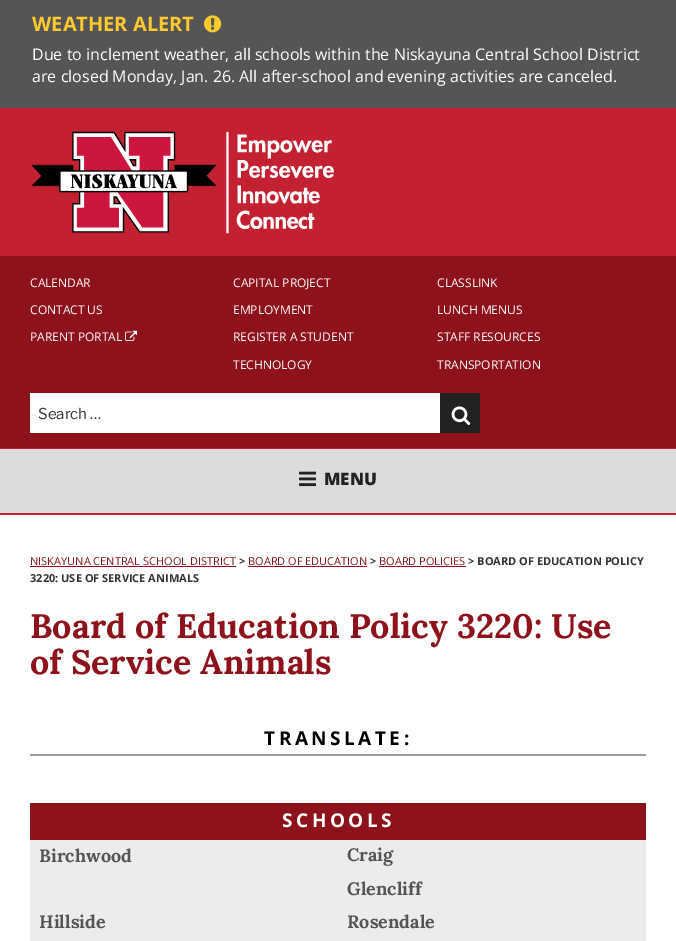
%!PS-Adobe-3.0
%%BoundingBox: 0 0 676 941
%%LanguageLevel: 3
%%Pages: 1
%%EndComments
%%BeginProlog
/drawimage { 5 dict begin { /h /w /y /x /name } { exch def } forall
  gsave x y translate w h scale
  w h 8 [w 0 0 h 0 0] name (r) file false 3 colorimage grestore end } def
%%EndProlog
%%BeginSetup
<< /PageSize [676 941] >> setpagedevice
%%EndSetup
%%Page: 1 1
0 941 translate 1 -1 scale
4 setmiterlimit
0.765 0.125 0.196 setrgbcolor
0 0 676 941 rectfill
0.333 setgray
0 0 676 108 rectfill
(images/1.raw) 204 15 18 18 drawimage
(images/2.raw) 31 131 303 103 drawimage
0.557 0.071 0.106 setrgbcolor
0 256 676 192 rectfill
(images/3.raw) 125 330 12 11 drawimage
1 setgray
30 393 410 40 rectfill
0.133 setgray
440 393 40 40 rectfill
(images/4.raw) 451 406 20 19 drawimage
0.863 setgray
0 449 676 64 rectfill
(images/5.raw) 299 471 17 16 drawimage
1 setgray
0 515 676 426 rectfill
0.557 0.071 0.106 setrgbcolor
30 566 206 1 rectfill
248 566 119 1 rectfill
379 566 87 1 rectfill
0.62 setgray
30 754 616 2 rectfill
0.925 setgray
30 840 616 101 rectfill
0.557 0.071 0.106 setrgbcolor
30 803 616 37 rectfill
/OpenSans-Bold [20 0 0 -20 0 0] selectfont
0.992 0.788 0.184 setrgbcolor
32 31 moveto (WEATHER ALERT) show
/OpenSans-Regular [16 0 0 -16 0 0] selectfont
1 setgray
32 60 moveto (Due to inclement weather, all schools within the Niskayuna Central School District) show
32 82 moveto (are closed Monday, Jan. 26. All after-school and evening activities are canceled.) show
/OpenSans-Regular [12 0 0 -12 0 0] selectfont
30 287 moveto (CALENDAR) show
233 287 moveto (CAPITAL PROJECT) show
437 287 moveto (CLASSLINK) show
30 314 moveto (CONTACT US) show
233 314 moveto (EMPLOYMENT) show
437 314 moveto (LUNCH MENUS) show
30 341 moveto (PARENT PORTAL) show
233 341 moveto (REGISTER A STUDENT) show
437 341 moveto (STAFF RESOURCES) show
233 369 moveto (TECHNOLOGY) show
437 369 moveto (TRANSPORTATION) show
/LibreFranklin-Thin [15 0 0 -15 0 0] selectfont
0.2 setgray
38 419 moveto (Search …) show
/OpenSans-ExtraBold [17 0 0 -17 0 0] selectfont
0.133 setgray
324 485 moveto (MENU) show
/OpenSans-Regular [11 0 0 -11 0 0] selectfont
0.557 0.071 0.106 setrgbcolor
30 565 moveto (NISKAYUNA CENTRAL SCHOOL DISTRICT) show
/OpenSans-Bold [11 0 0 -11 0 0] selectfont
0.2 setgray
239 565 moveto (>) show
/OpenSans-Regular [11 0 0 -11 0 0] selectfont
0.557 0.071 0.106 setrgbcolor
248 565 moveto (BOARD OF EDUCATION) show
/OpenSans-Bold [11 0 0 -11 0 0] selectfont
0.2 setgray
370 565 moveto (>) show
/OpenSans-Regular [11 0 0 -11 0 0] selectfont
0.557 0.071 0.106 setrgbcolor
379 565 moveto (BOARD POLICIES) show
/OpenSans-Bold [11 0 0 -11 0 0] selectfont
0.2 setgray
468 565 moveto (> BOARD OF EDUCATION POLICY) show
30 582 moveto (3220: USE OF SERVICE ANIMALS) show
/Lora-Bold [34 0 0 -34 0 0] selectfont
0.557 0.071 0.106 setrgbcolor
30 638 moveto (Board of Education Policy 3220: Use) show
30 674 moveto (of Service Animals) show
/OpenSans-Bold [19 0 0 -19 0 0] selectfont
0 setgray
264 745 moveto 3.5 0 (TRANSLATE:) ashow
1 setgray
282 827 moveto 3.5 0 (SCHOOLS) ashow
/Lora-Bold [18 0 0 -18 0 0] selectfont
0.333 setgray
39 862 moveto (Birchwood) show
347 861 moveto (Craig) show
347 895 moveto (Glencliff) show
39 928 moveto (Hillside) show
347 928 moveto (Rosendale) show
showpage
%%EOF
